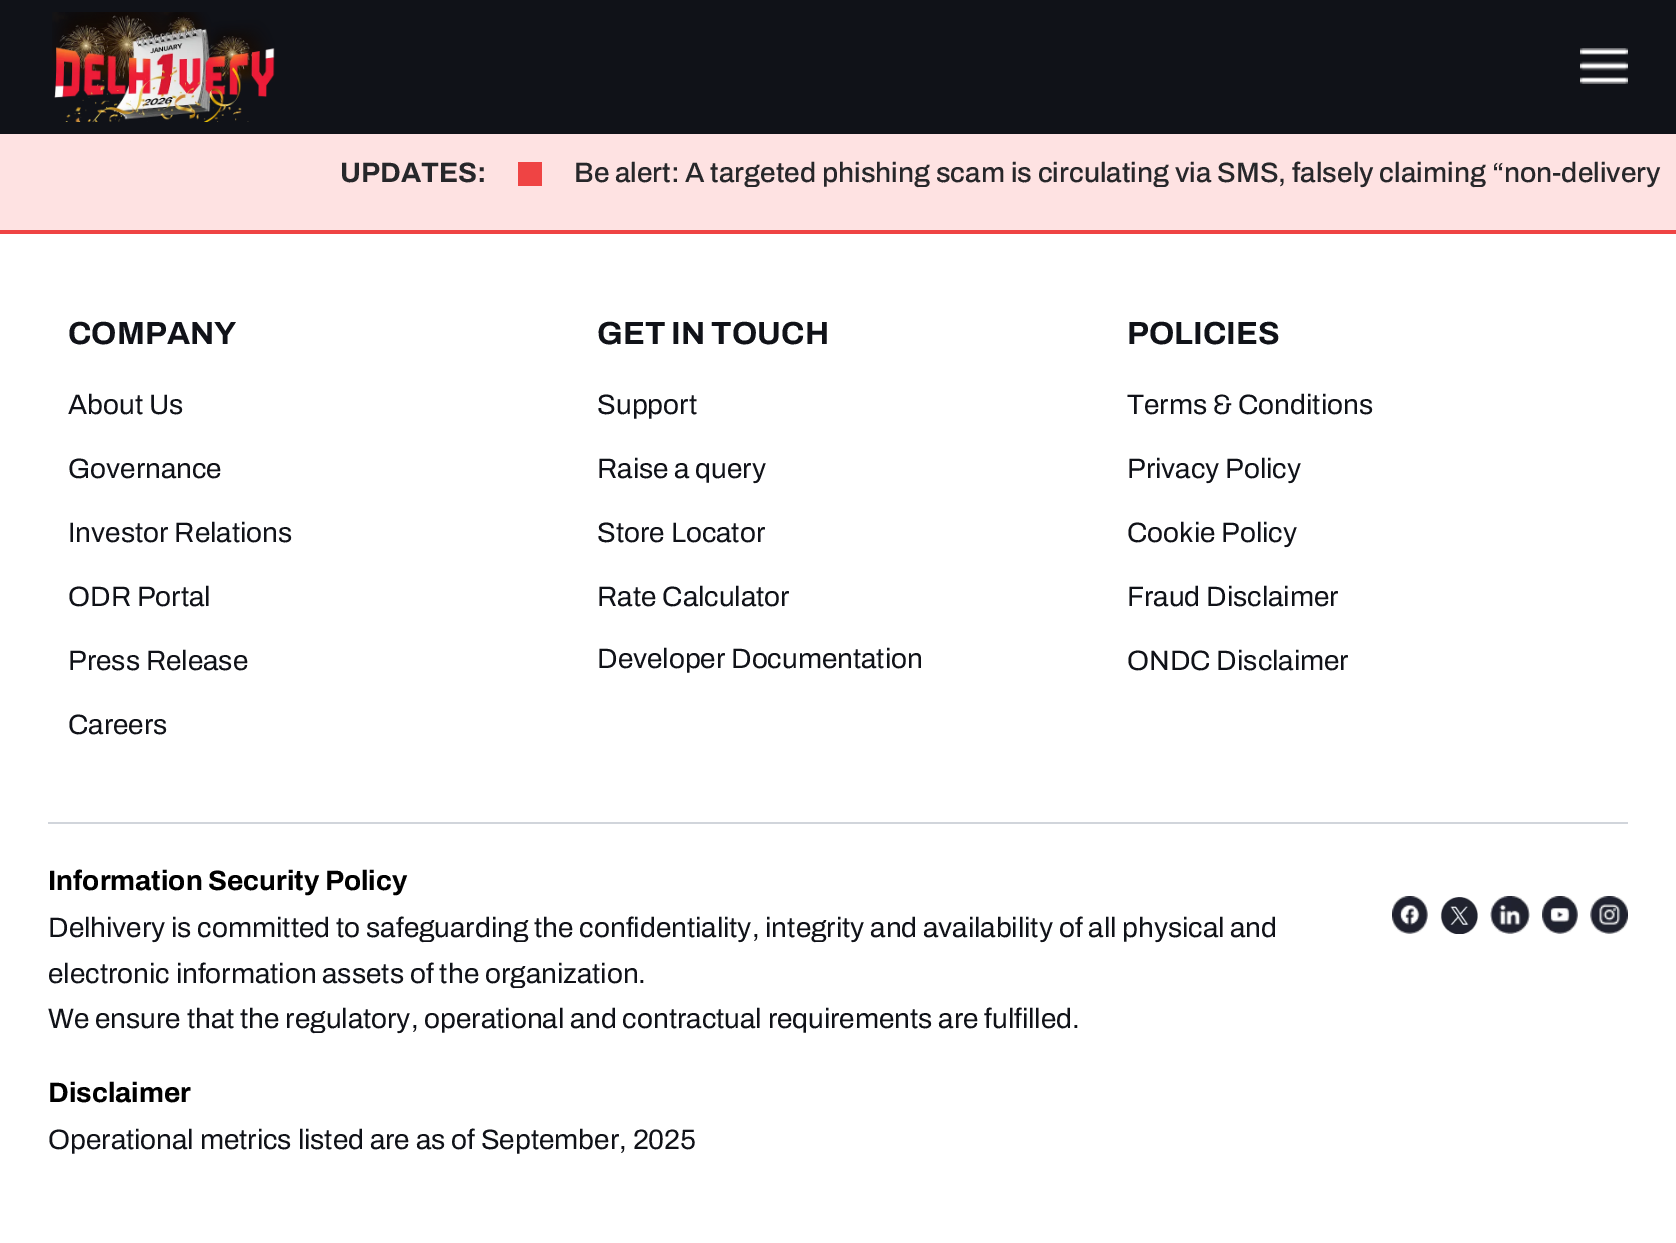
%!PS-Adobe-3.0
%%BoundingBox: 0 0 1676 1243
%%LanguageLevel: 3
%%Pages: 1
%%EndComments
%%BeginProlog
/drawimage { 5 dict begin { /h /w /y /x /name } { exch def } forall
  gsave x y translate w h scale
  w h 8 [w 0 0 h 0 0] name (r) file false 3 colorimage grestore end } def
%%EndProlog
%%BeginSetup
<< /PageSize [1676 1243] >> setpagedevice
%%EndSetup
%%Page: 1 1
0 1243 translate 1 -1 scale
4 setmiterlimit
1 setgray
0 0 1676 1243 rectfill
0.063 0.071 0.094 setrgbcolor
0 0 1676 134 rectfill
(images/1.raw) 52 12 223 110 drawimage
(images/2.raw) 1580 48 48 36 drawimage
0.996 0.886 0.886 setrgbcolor
0 134 1676 96 rectfill
0.937 0.267 0.267 setrgbcolor
0 230 1676 4 rectfill
518 162 24 24 rectfill
0.82 0.835 0.859 setrgbcolor
48 822 1580 2 rectfill
(images/3.raw) 1392 896 36 38 drawimage
(images/4.raw) 1440 897 38 37 drawimage
(images/5.raw) 1490 896 40 38 drawimage
(images/6.raw) 1542 896 36 38 drawimage
(images/7.raw) 1590 896 38 38 drawimage
/Archivo-Bold [28 0 0 -28 0 0] selectfont
0.153 0.153 0.165 setrgbcolor
340 182 moveto (UPDATES:) show
/Archivo-Medium [28 0 0 -28 0 0] selectfont
574 182 moveto (Be alert: A targeted phishing scam is circulating via SMS, falsely claiming “non-delivery) show
/Archivo-Bold [32 0 0 -32 0 0] selectfont
0.063 0.071 0.094 setrgbcolor
68 344 moveto (COMPANY) show
/Archivo-Regular [28 0 0 -28 0 0] selectfont
68 414 moveto (About Us) show
68 478 moveto (Governance) show
68 542 moveto (Investor Relations) show
68 606 moveto (ODR Portal) show
68 670 moveto (Press Release) show
68 734 moveto (Careers) show
/Archivo-Bold [32 0 0 -32 0 0] selectfont
597 344 moveto (GET IN TOUCH) show
/Archivo-Regular [28 0 0 -28 0 0] selectfont
597 414 moveto (Support) show
597 478 moveto (Raise a query) show
597 542 moveto (Store Locator) show
597 606 moveto (Rate Calculator) show
597 668 moveto (Developer Documentation) show
/Archivo-Bold [32 0 0 -32 0 0] selectfont
1127 344 moveto (POLICIES) show
/Archivo-Regular [28 0 0 -28 0 0] selectfont
1127 414 moveto (Terms & Conditions) show
1127 478 moveto (Privacy Policy) show
1127 542 moveto (Cookie Policy) show
1127 606 moveto (Fraud Disclaimer) show
1127 670 moveto (ONDC Disclaimer) show
/Archivo-Bold [28 0 0 -28 0 0] selectfont
0 setgray
48 890 moveto (Information Security Policy) show
/Archivo-Regular [28 0 0 -28 0 0] selectfont
0.063 0.071 0.094 setrgbcolor
48 937 moveto (Delhivery is committed to safeguarding the confidentiality, integrity and availability of all physical and) show
48 983 moveto (electronic information assets of the organization.) show
48 1028 moveto (We ensure that the regulatory, operational and contractual requirements are fulfilled.) show
/Archivo-Bold [28 0 0 -28 0 0] selectfont
0 setgray
48 1102 moveto (Disclaimer) show
/Archivo-Regular [28 0 0 -28 0 0] selectfont
0.063 0.071 0.094 setrgbcolor
48 1149 moveto (Operational metrics listed are as of September, 2025) show
showpage
%%EOF
